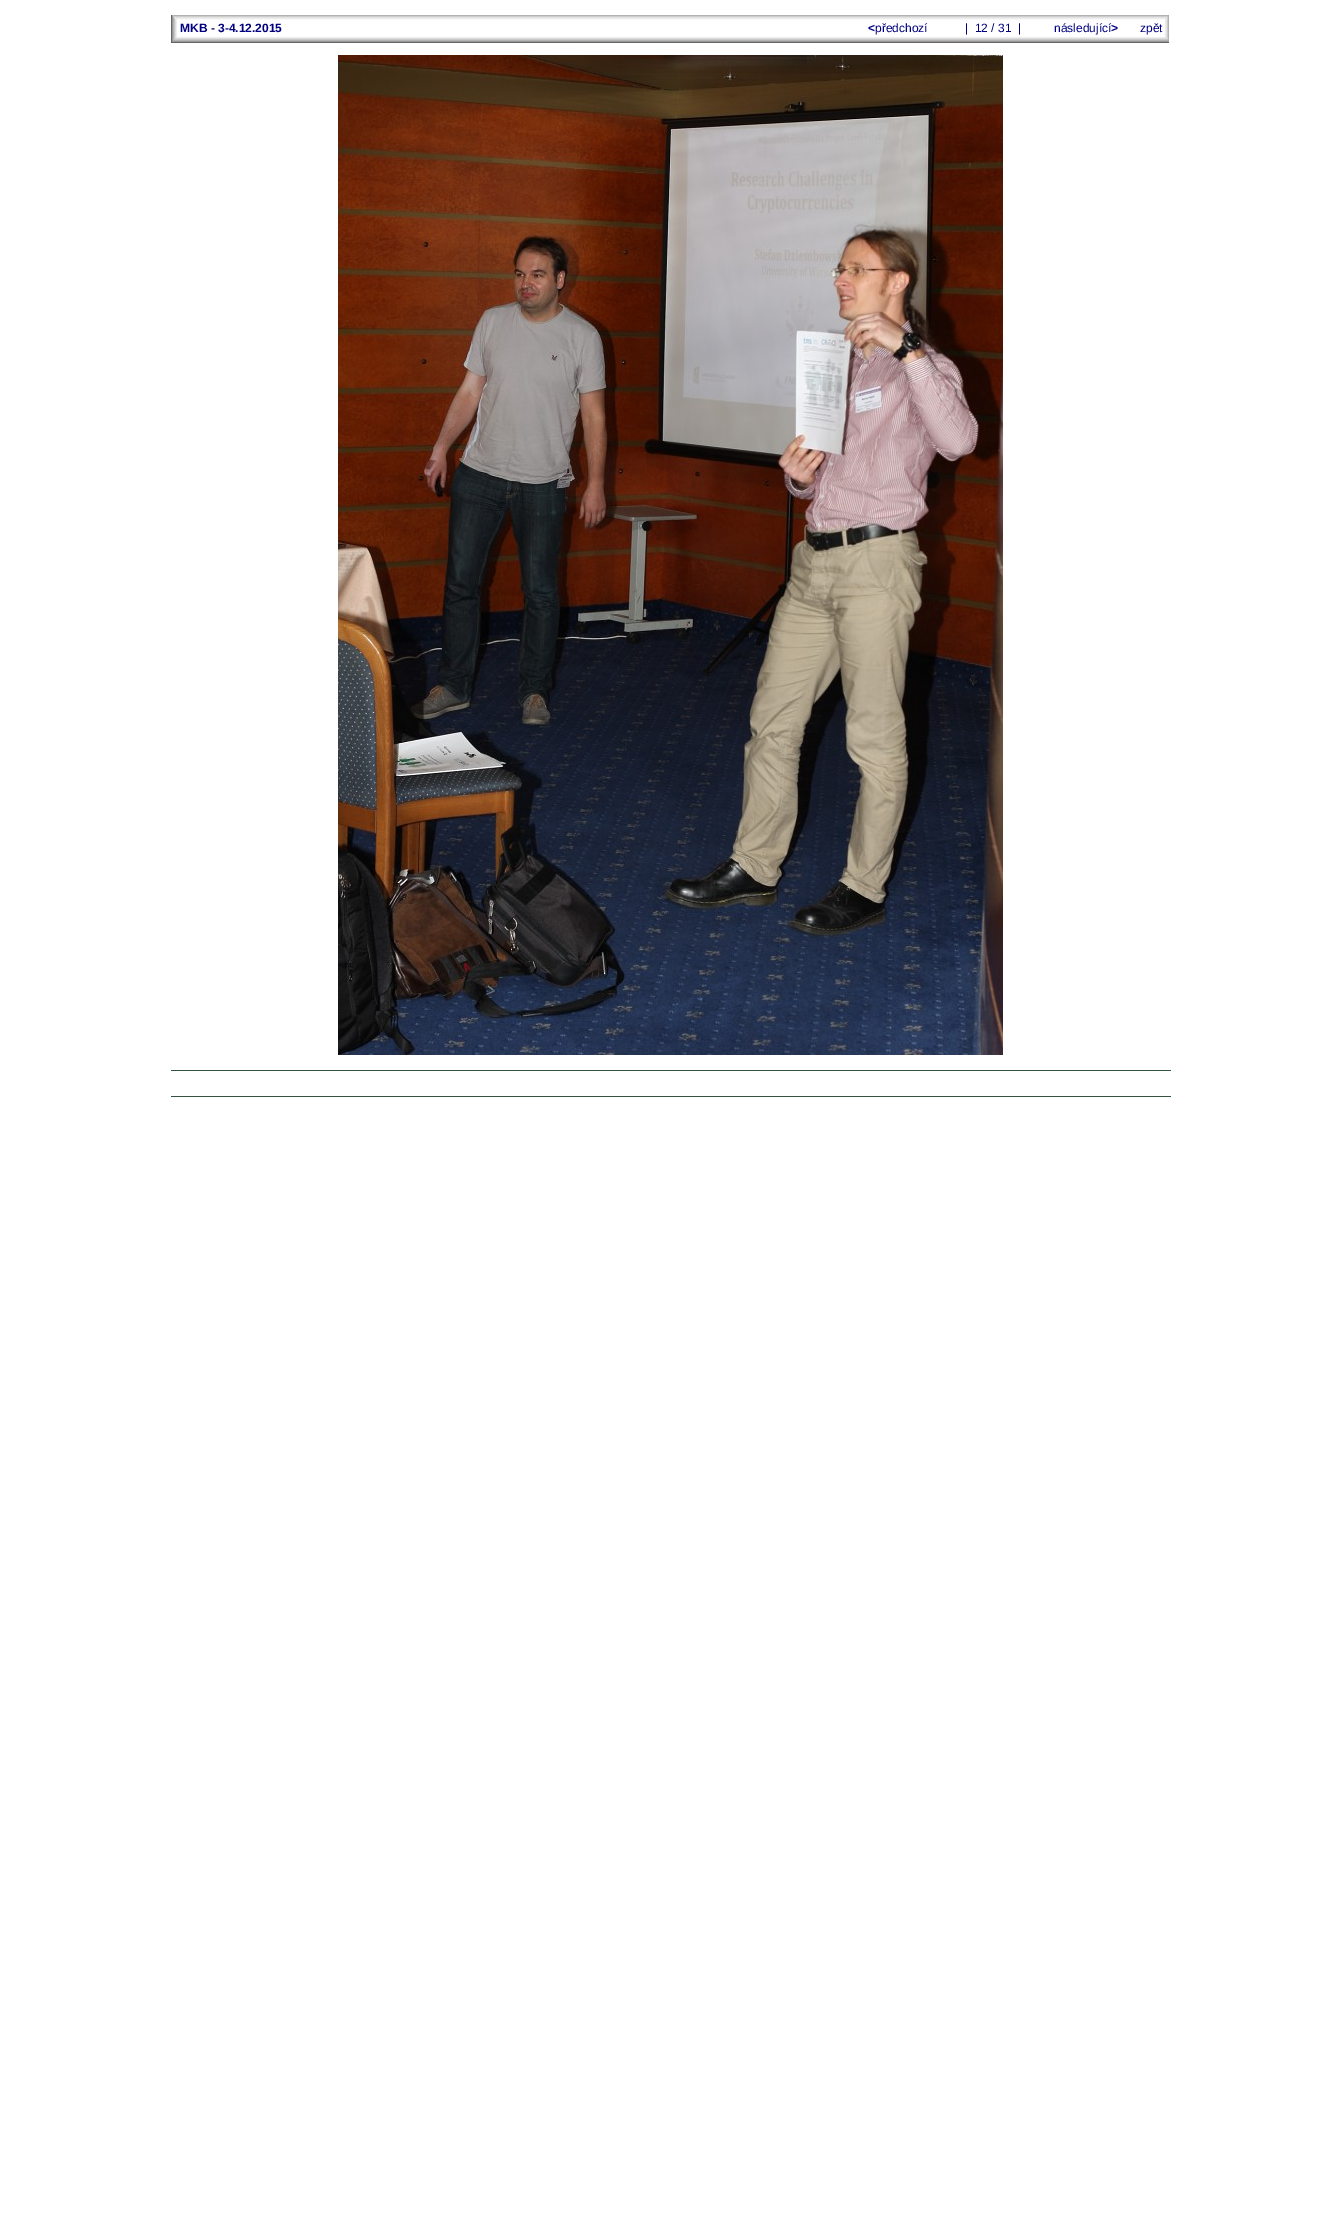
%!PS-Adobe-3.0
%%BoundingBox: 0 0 1341 2224
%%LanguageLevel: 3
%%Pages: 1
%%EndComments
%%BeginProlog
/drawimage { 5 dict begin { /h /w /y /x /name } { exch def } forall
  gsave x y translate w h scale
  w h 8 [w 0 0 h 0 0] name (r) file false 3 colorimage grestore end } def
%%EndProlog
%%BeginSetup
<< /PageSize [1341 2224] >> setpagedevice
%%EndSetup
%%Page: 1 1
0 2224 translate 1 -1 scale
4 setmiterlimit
1 setgray
0 0 1341 2224 rectfill
(images/1.raw) 171 15 998 28 drawimage
(images/2.raw) 338 55 665 1000 drawimage
0.208 0.329 0.239 setrgbcolor
171 1070 1000 1 rectfill
171 1096 1000 1 rectfill
/LiberationSans-Bold [12 0 0 -12 0 0] selectfont
0 0 0.502 setrgbcolor
180 32 moveto (MKB - 3-4.12.2015) show
868 32 moveto (<) show
/LiberationSans-Regular [12 0 0 -12 0 0] selectfont
875 32 moveto (předchozí) show
965 32 moveto (|  12 / 31  |) show
1054 32 moveto (následující) show
/LiberationSans-Bold [12 0 0 -12 0 0] selectfont
1111 32 moveto (>) show
/LiberationSans-Regular [12 0 0 -12 0 0] selectfont
1140 32 moveto (zpět) show
showpage
%%EOF
